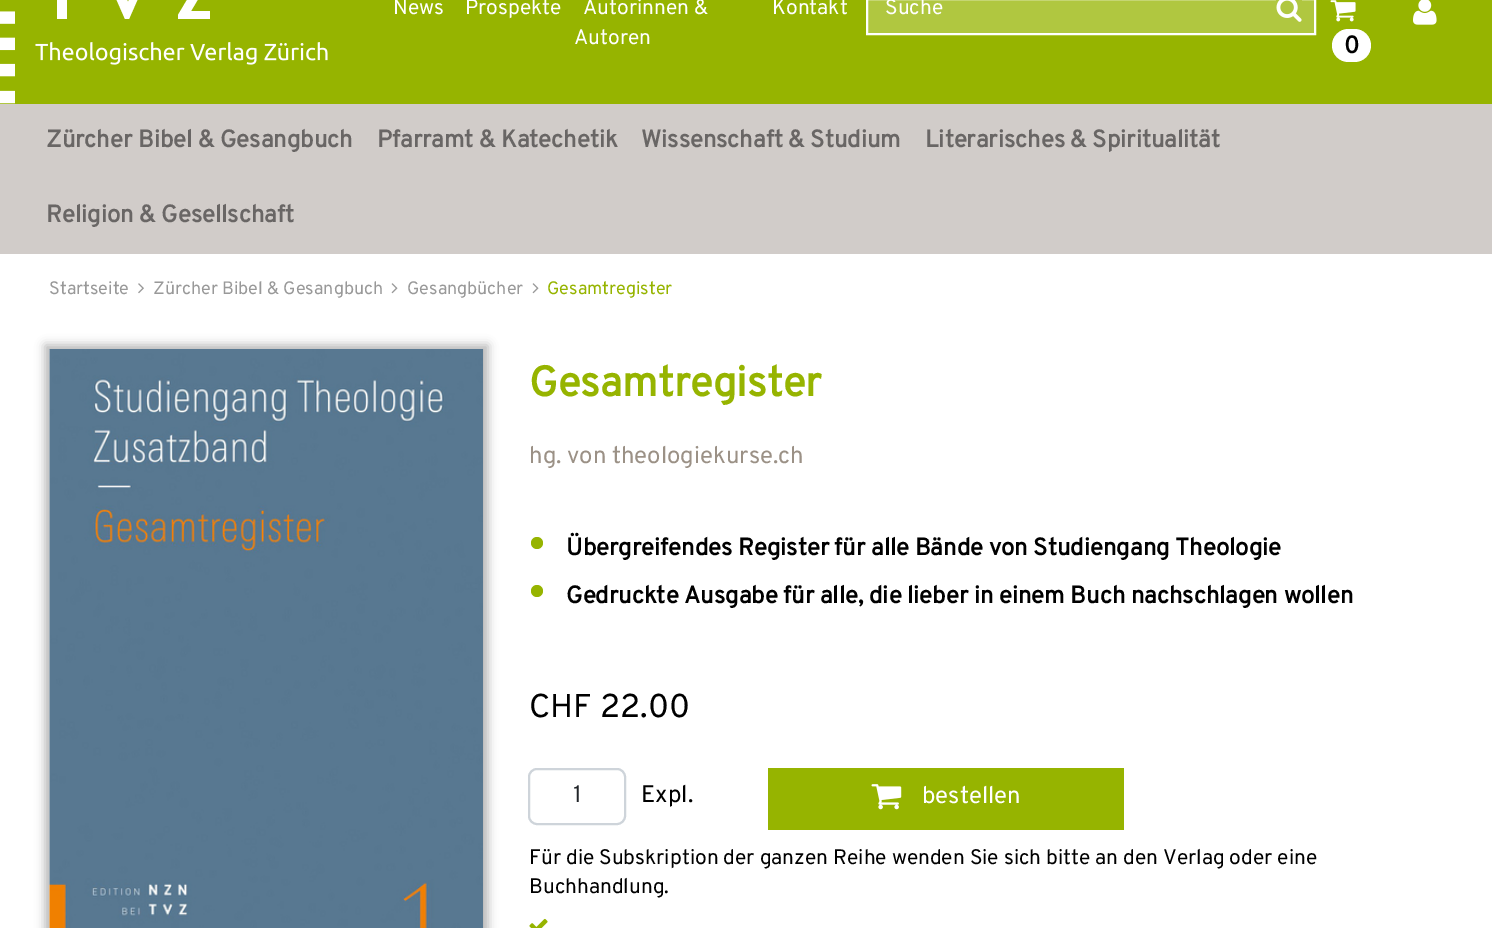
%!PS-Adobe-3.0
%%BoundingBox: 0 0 1492 928
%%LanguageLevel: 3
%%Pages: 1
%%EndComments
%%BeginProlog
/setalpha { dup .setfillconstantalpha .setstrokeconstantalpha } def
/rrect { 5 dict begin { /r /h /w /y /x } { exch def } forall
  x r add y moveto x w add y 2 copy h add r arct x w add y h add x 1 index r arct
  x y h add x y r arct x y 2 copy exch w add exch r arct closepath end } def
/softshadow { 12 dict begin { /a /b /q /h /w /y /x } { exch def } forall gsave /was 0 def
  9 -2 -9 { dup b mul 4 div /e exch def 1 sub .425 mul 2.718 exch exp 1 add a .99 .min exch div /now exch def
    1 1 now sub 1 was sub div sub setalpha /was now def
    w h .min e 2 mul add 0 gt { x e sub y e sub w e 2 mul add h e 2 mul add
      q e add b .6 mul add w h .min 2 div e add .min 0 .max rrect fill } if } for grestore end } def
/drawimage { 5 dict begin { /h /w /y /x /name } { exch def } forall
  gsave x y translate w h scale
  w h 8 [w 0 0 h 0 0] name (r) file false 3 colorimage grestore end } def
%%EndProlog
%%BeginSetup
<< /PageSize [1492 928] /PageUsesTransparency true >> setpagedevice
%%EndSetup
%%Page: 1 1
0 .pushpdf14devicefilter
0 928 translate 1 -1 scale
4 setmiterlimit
1 setgray
0 0 1492 928 rectfill
0.588 0.706 0 setrgbcolor
0 0 1492 104 rectfill
(images/1.raw) 0 11 15 93 drawimage
1 setgray
newpath 78 -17 moveto 67 -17 lineto 67 19 lineto 57 19 lineto 57 -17 lineto 46 -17 lineto 46 -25 lineto 78 -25 lineto closepath fill
newpath 147 -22 moveto 129 19 lineto 125 19 lineto 107 -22 lineto 116 -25 lineto 128 2 lineto 139 -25 lineto closepath fill
newpath 210 19 moveto 178 19 lineto 178 15 lineto 197 -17 lineto 180 -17 lineto 180 -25 lineto 210 -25 lineto 210 -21 lineto 191 11 lineto 210 11 lineto closepath fill
(images/2.raw) 35 42 293 23 drawimage
0.69 0.78 0.251 setrgbcolor
newpath 867 -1 moveto 1315 -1 lineto 1315 34 lineto 867 34 lineto closepath gsave fill grestore
1 setgray
2 setlinewidth
stroke
(images/3.raw) 1276 0 26 22 drawimage
(images/4.raw) 1413 0 24 25 drawimage
(images/5.raw) 1330 0 26 22 drawimage
1332 29 39 33 16.5 rrect fill
0.82 0.8 0.788 setrgbcolor
0 104 1492 150 rectfill
(images/6.raw) 138 283 6 11 drawimage
(images/7.raw) 391 283 7 11 drawimage
(images/7.raw) 532 283 7 11 drawimage
0 setgray
45 345 443 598 0 5 0.3 softshadow
(images/8.raw) 49 349 434 579 drawimage
0.588 0.706 0 setrgbcolor
newpath 537 543 6 0 360 arc closepath fill
newpath 537 591 6 0 360 arc closepath fill
0.808 0.831 0.855 setrgbcolor
529 769 96 55 8 rrect stroke
0.588 0.706 0 setrgbcolor
768 768 356 62 rectfill
(images/9.raw) 871 784 31 26 drawimage
(images/10.raw) 529 918 19 10 drawimage
/Overpass-Regular [21 0 0 -21 0 0] selectfont
1 setgray
393 14 moveto (News) show
465 14 moveto (Prospekte) show
583 14 moveto (Autorinnen &) show
574 44 moveto (Autoren) show
772 14 moveto (Kontakt) show
885 14 moveto (Suche) show
/Overpass-Bold [24 0 0 -24 0 0] selectfont
0 setgray
1344 53 moveto (0) show
0.412 0.4 0.396 setrgbcolor
46 147 moveto (Zürcher Bibel & Gesangbuch) show
377 147 moveto (Pfarramt & Katechetik) show
641 147 moveto (Wissenschaft & Studium) show
925 147 moveto (Literarisches & Spiritualität) show
46 222 moveto (Religion & Gesellschaft) show
/Overpass-Regular [18 0 0 -18 0 0] selectfont
0.6 setgray
49 294 moveto (Startseite) show
153 294 moveto (Zürcher Bibel & Gesangbuch) show
407 294 moveto (Gesangbücher) show
0.588 0.706 0 setrgbcolor
547 294 moveto (Gesamtregister) show
/Overpass-Bold [42 0 0 -42 0 0] selectfont
529 396 moveto (Gesamtregister) show
/Overpass-Regular [24 0 0 -24 0 0] selectfont
0.608 0.569 0.525 setrgbcolor
529 463 moveto (hg. von theologiekurse.ch) show
/Overpass-Bold [24 0 0 -24 0 0] selectfont
0 setgray
566 555 moveto (Übergreifendes Register für alle Bände von Studiengang Theologie) show
566 603 moveto (Gedruckte Ausgabe für alle, die lieber in einem Buch nachschlagen wollen) show
/Overpass-Regular [33 0 0 -33 0 0] selectfont
529 717 moveto (CHF 22.00) show
/Overpass-Regular [24 0 0 -24 0 0] selectfont
0.129 0.145 0.161 setrgbcolor
573 802 moveto (1) show
0 setgray
641 802 moveto (Expl.) show
1 setgray
922 803 moveto (bestellen) show
/Overpass-Regular [21 0 0 -21 0 0] selectfont
0 setgray
529 864 moveto (Für die Subskription der ganzen Reihe wenden Sie sich bitte an den Verlag oder eine) show
529 893 moveto (Buchhandlung.) show
.poppdf14devicefilter showpage
%%EOF
